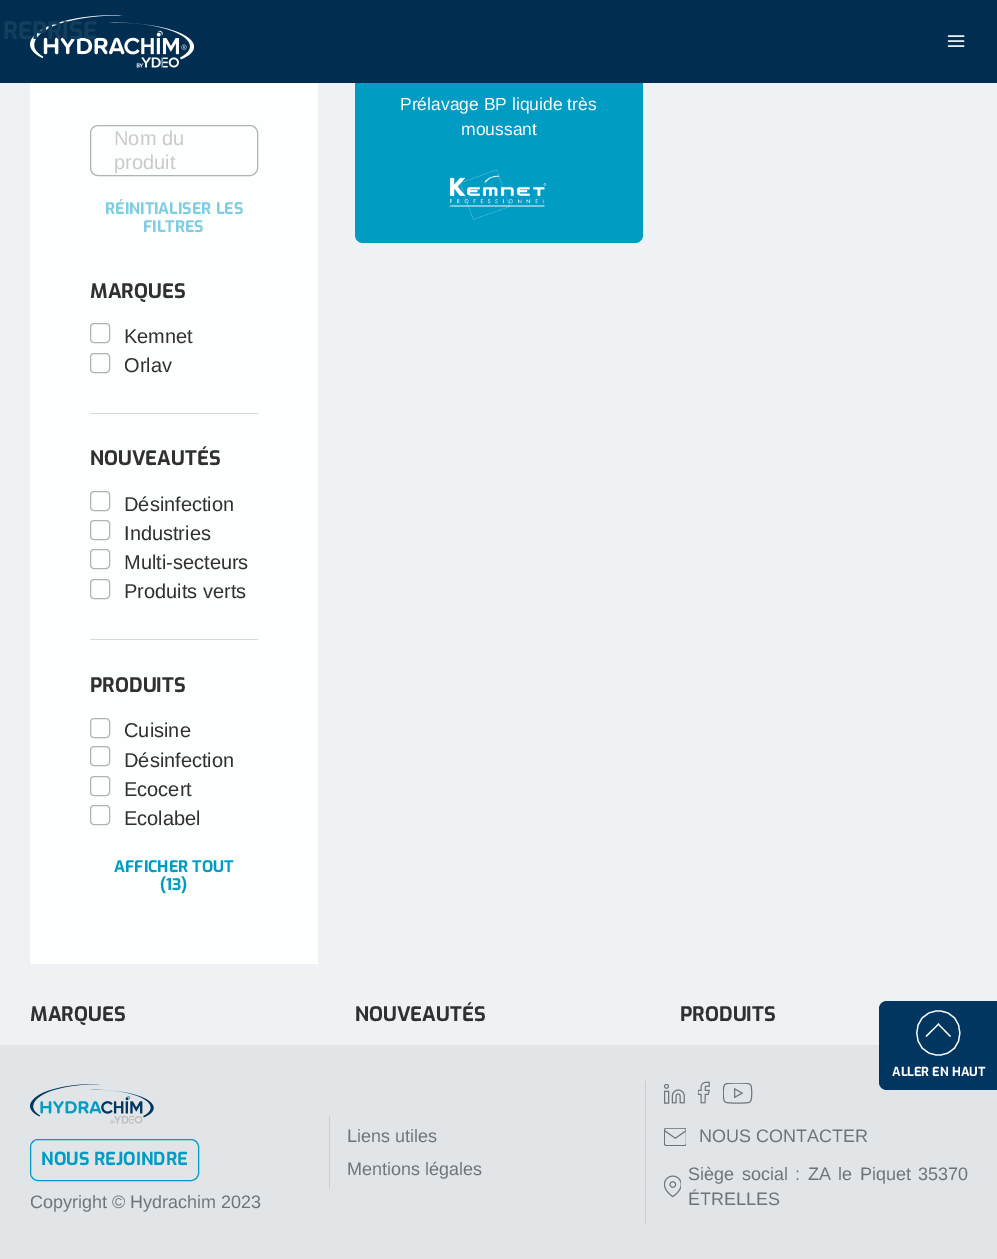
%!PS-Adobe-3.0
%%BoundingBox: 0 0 997 1259
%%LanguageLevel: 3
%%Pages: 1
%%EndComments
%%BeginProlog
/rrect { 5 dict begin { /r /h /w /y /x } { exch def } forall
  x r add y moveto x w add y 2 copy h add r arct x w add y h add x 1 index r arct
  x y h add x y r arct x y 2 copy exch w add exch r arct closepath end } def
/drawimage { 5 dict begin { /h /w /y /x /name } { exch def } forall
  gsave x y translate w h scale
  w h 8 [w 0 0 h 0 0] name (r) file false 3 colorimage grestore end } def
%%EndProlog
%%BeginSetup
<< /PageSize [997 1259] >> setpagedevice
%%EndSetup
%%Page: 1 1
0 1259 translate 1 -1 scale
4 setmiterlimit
0.937 0.949 0.961 setrgbcolor
0 0 997 1259 rectfill
0 0.612 0.769 setrgbcolor
355 18 288 225 8 rrect fill
0.004 0.18 0.314 setrgbcolor
0 0 997 83 rectfill
(images/1.raw) 30 15 164 53 drawimage
(images/2.raw) 947 35 18 12 drawimage
(images/3.raw) 450 169 97 51 drawimage
0.992 0.996 0.996 setrgbcolor
30 83 288 881 rectfill
0.698 setgray
90.5 125.5 167 50 7.5 rrect stroke
90.5 323.5 19 19 3.5 rrect stroke
90.5 353.5 19 19 3.5 rrect stroke
0.843 0.847 0.847 setrgbcolor
90 413 168 1 rectfill
0.698 setgray
90.5 491.5 19 19 3.5 rrect stroke
90.5 520.5 19 19 3.5 rrect stroke
90.5 549.5 19 19 3.5 rrect stroke
90.5 579.5 19 19 3.5 rrect stroke
0.843 0.847 0.847 setrgbcolor
90 639 168 1 rectfill
0.698 setgray
90.5 718.5 19 19 3.5 rrect stroke
90.5 746.5 19 19 3.5 rrect stroke
90.5 776.5 19 19 3.5 rrect stroke
90.5 805.5 19 19 3.5 rrect stroke
0.886 0.898 0.91 setrgbcolor
0 1045 997 214 rectfill
0 0.212 0.373 setrgbcolor
newpath 887 1001 moveto 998 1001 lineto 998 1090 lineto 887 1090 lineto 882.5 1090 879 1086.5 879 1082 curveto 879 1009 lineto 879 1004.5 882.5 1001 887 1001 curveto closepath fill
1 setgray
1.2 setlinewidth
newpath 938.5 1055 moveto 909.5 1055 909.5 1011 938.5 1011 curveto 967 1011 967 1055 938.5 1055 curveto closepath stroke
newpath 925.5 1036 moveto 938.5 1023.5 lineto 939.5 1024 lineto 926.5 1037 lineto closepath fill
newpath 937.5 1024 moveto 938.5 1023.5 lineto 951 1036 lineto 950 1037 lineto closepath fill
(images/4.raw) 30 1084 124 40 drawimage
0 0.612 0.769 setrgbcolor
1 setlinewidth
30.5 1139.5 168 41 7.5 rrect stroke
0.804 setgray
329 1116 1 73 rectfill
645 1081 1 143 rectfill
(images/5.raw) 664 1084 21 20 drawimage
(images/6.raw) 698 1081 12 23 drawimage
(images/7.raw) 723 1083 30 21 drawimage
(images/8.raw) 664 1128 22 18 drawimage
(images/9.raw) 664 1175 17 23 drawimage
/Exo-Bold [24 0 0 -24 0 0] selectfont
0.078 0.243 0.365 setrgbcolor
3 39 moveto (REPRISE) show
/LiberationSans-Regular [17.5 0 0 -17.5 0 0] selectfont
1 setgray
400 110 moveto (Prélavage BP liquide très) show
461 135 moveto (moussant) show
/LiberationSans-Regular [20 0 0 -20 0 0] selectfont
0.792 setgray
114 145 moveto (Nom du) show
114 169 moveto (produit) show
/Exo-Bold [16 0 0 -16 0 0] selectfont
0.498 0.804 0.882 setrgbcolor
105 214 moveto (RÉINITIALISER LES) show
143 232 moveto (FILTRES) show
/Exo-Bold [20 0 0 -20 0 0] selectfont
0.188 setgray
90 298 moveto (MARQUES) show
/LiberationSans-Regular [20 0 0 -20 0 0] selectfont
124 343 moveto (Kemnet) show
124 372 moveto (Orlav) show
/Exo-Bold [20 0 0 -20 0 0] selectfont
90 465 moveto (NOUVEAUTÉS) show
/LiberationSans-Regular [20 0 0 -20 0 0] selectfont
124 511 moveto (Désinfection) show
124 540 moveto (Industries) show
124 569 moveto (Multi-secteurs) show
124 598 moveto (Produits verts) show
/Exo-Bold [20 0 0 -20 0 0] selectfont
90 692 moveto (PRODUITS) show
/LiberationSans-Regular [20 0 0 -20 0 0] selectfont
124 737 moveto (Cuisine) show
124 767 moveto (Désinfection) show
124 796 moveto (Ecocert) show
124 825 moveto (Ecolabel) show
/Exo-Bold [16 0 0 -16 0 0] selectfont
0 0.612 0.769 setrgbcolor
114 872 moveto (AFFICHER TOUT) show
160 890 moveto (\(13\)) show
/Exo-Bold [20 0 0 -20 0 0] selectfont
0.188 setgray
30 1021 moveto (MARQUES) show
355 1021 moveto (NOUVEAUTÉS) show
680 1021 moveto (PRODUITS) show
/Exo-Bold [12.5 0 0 -12.5 0 0] selectfont
1 setgray
892 1076 moveto (ALLER EN HAUT) show
/Exo-Bold [18 0 0 -18 0 0] selectfont
0 0.612 0.769 setrgbcolor
41 1165 moveto (NOUS REJOINDRE) show
/LiberationSans-Regular [18 0 0 -18 0 0] selectfont
0.431 0.455 0.475 setrgbcolor
30 1208 moveto (Copyright © Hydrachim 2023) show
347 1142 moveto (Liens utiles) show
347 1175 moveto (Mentions légales) show
699 1142 moveto (NOUS CONTACTER) show
688 1180 moveto 2.5 0 32 (Siège social : ZA le Piquet 35370) widthshow
688 1205 moveto (ÉTRELLES) show
showpage
%%EOF
